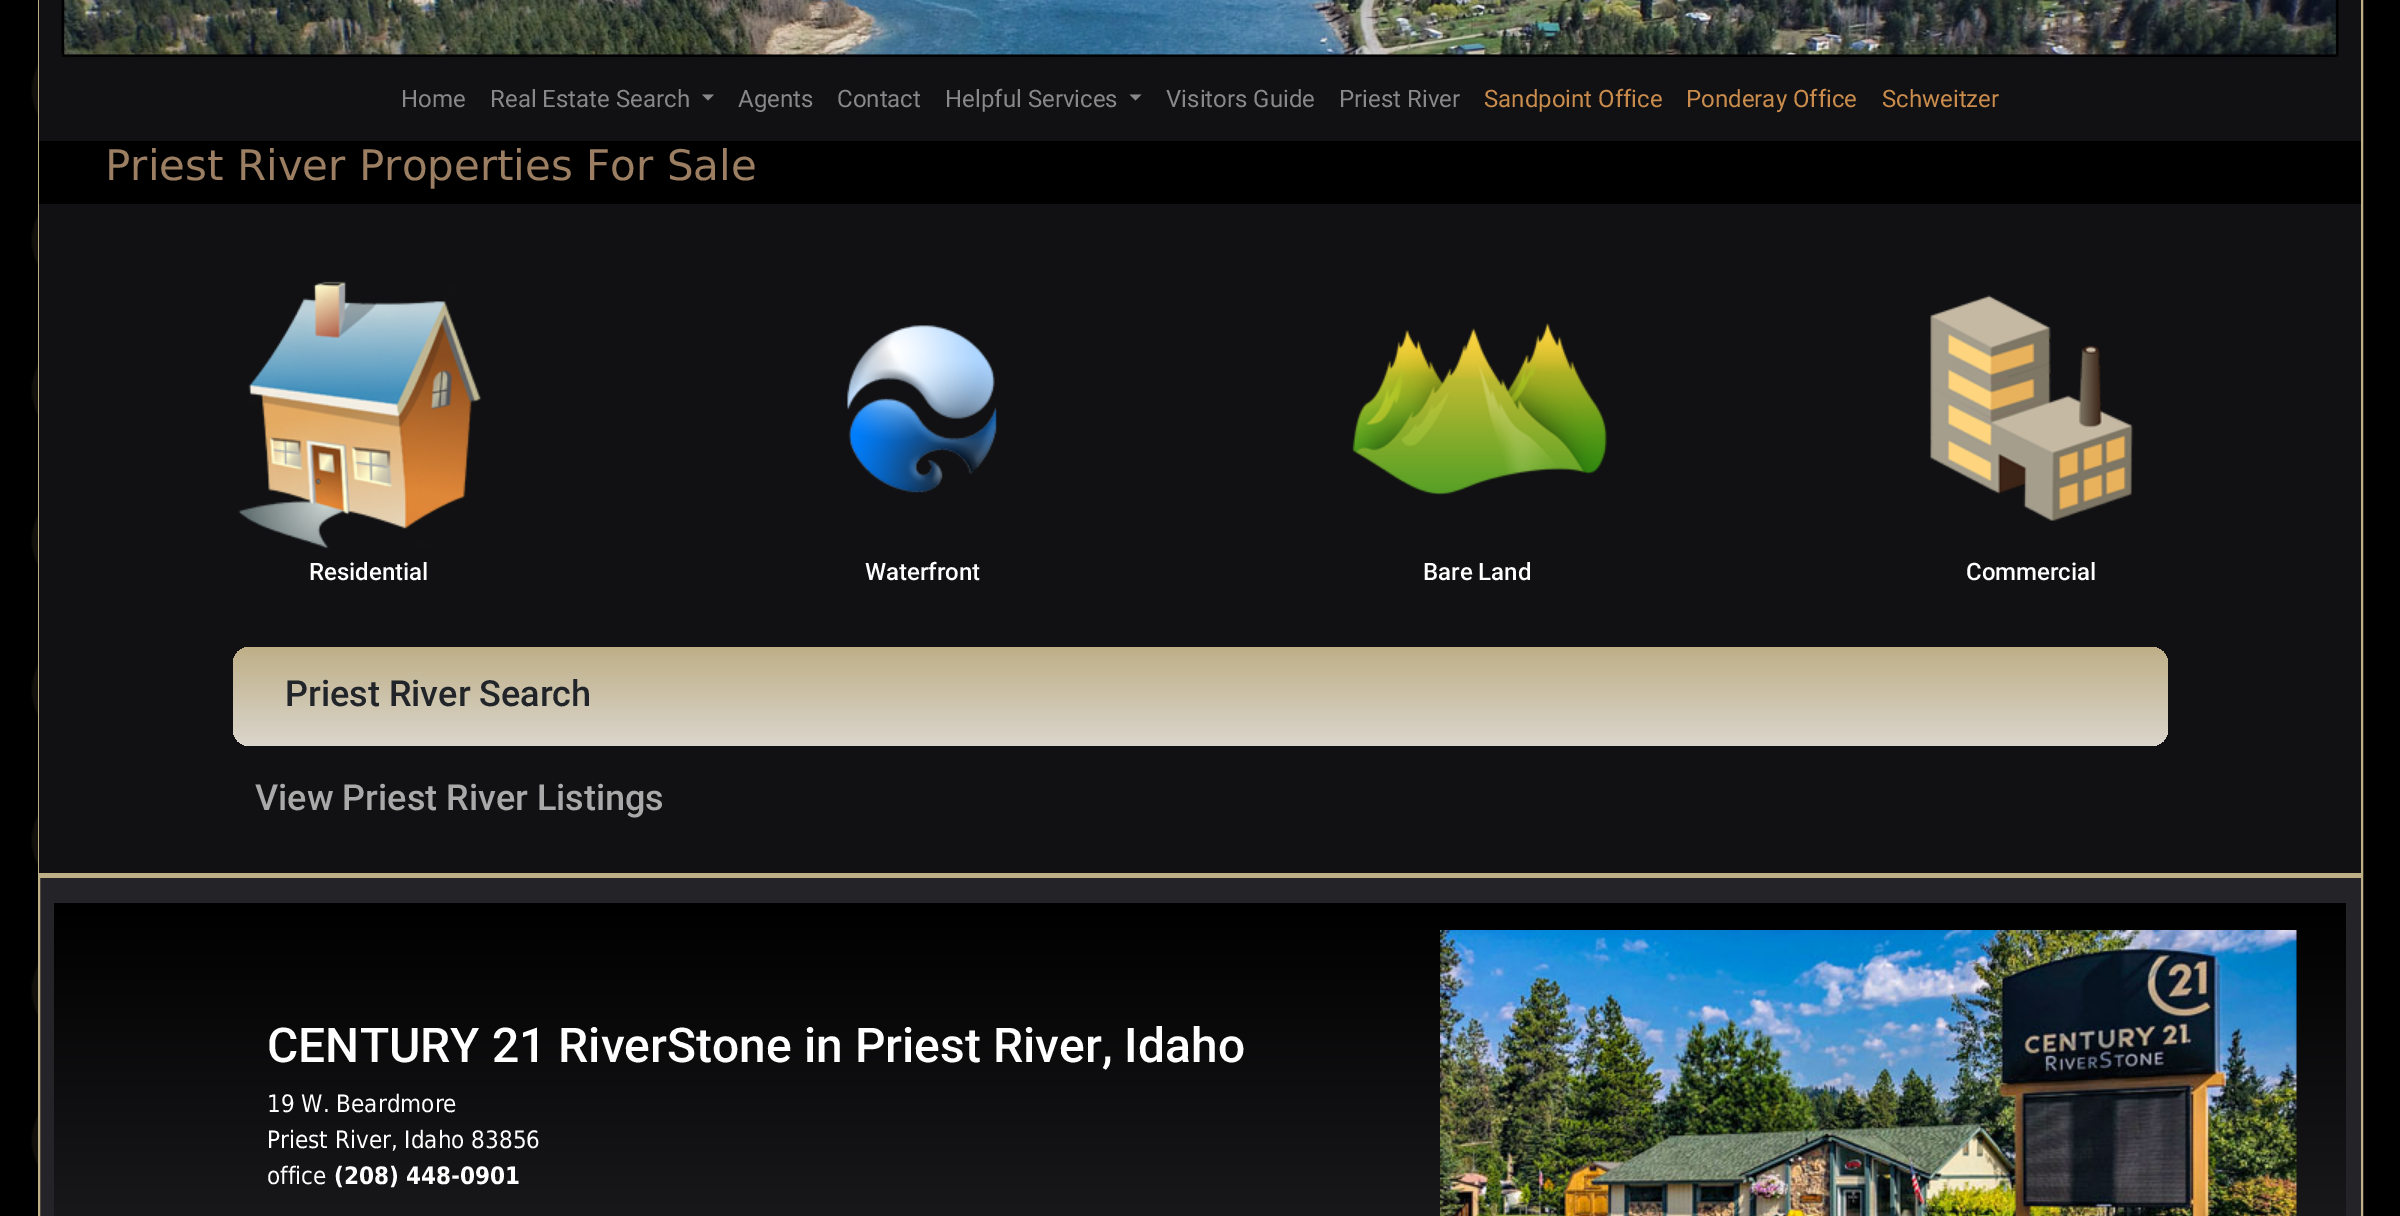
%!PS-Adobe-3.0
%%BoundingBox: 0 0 2400 1216
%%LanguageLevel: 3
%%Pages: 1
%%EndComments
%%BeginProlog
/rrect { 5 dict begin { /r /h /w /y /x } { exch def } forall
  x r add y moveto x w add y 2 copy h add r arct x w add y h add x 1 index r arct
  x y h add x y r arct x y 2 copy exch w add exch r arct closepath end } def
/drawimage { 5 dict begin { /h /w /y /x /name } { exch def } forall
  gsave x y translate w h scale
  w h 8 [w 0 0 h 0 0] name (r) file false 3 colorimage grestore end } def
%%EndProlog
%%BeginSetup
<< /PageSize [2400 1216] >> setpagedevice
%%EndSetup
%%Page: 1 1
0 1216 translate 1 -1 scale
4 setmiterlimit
0 setgray
0 0 2400 1216 rectfill
(images/1.raw) 31 39 7 1152 drawimage
0.141 0.141 0.157 setrgbcolor
40 878 2321 338 rectfill
0.745 0.686 0.525 setrgbcolor
2 setlinewidth
39 -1 2323 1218 rectstroke
0.067 0.067 0.075 setrgbcolor
39 0 2322 873 rectfill
0.745 0.686 0.525 setrgbcolor
39 873 2322 5 rectfill
(images/2.raw) 61 0 2278 57 drawimage
0.533 0.533 0.537 setrgbcolor
newpath 702 94.5 moveto 714 94.5 lineto 708 100.5 lineto closepath fill
newpath 1129.5 94.5 moveto 1141.5 94.5 lineto 1135.5 100.5 lineto closepath fill
0 setgray
39 141 2322 63 rectfill
(images/3.raw) 238 281 244 268 drawimage
(images/4.raw) 847 325 150 168 drawimage
(images/5.raw) 1352 323 255 172 drawimage
(images/6.raw) 1930 295 204 226 drawimage
gsave 233 647 1935 99 17 rrect clip newpath
<< /ShadingType 2 /ColorSpace /DeviceRGB /Coords [1200 646 1200 746] /Extend [true true] /Function << /FunctionType 2 /Domain [0 1] /C0 [0.745 0.686 0.525] /C1 [0.859 0.839 0.804] /N 1 >> >> shfill grestore
gsave newpath 54 903 moveto 2346 903 lineto 2346 1216 lineto 54 1216 lineto closepath clip newpath
<< /ShadingType 2 /ColorSpace /DeviceRGB /Coords [1200 903 1200 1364] /Extend [true true] /Function << /FunctionType 2 /Domain [0 1] /C0 [0 0 0] /C1 [0.141 0.141 0.157] /N 1 >> >> shfill grestore
(images/7.raw) 1440 930 857 286 drawimage
/Roboto-Regular [24 0 0 -24 0 0] selectfont
0.533 0.533 0.537 setrgbcolor
401 107 moveto (Home) show
490 107 moveto (Real Estate Search) show
738 107 moveto (Agents) show
837 107 moveto (Contact) show
945 107 moveto (Helpful Services) show
1166 107 moveto (Visitors Guide) show
1339 107 moveto (Priest River) show
0.792 0.549 0.298 setrgbcolor
1484 107 moveto (Sandpoint Office) show
1686 107 moveto (Ponderay Office) show
1882 107 moveto (Schweitzer) show
/DejaVuSans-Regular [42 0 0 -42 0 0] selectfont
0.612 0.498 0.384 setrgbcolor
105 180 moveto (Priest River Properties For Sale) show
/Roboto-Medium [24 0 0 -24 0 0] selectfont
1 setgray
309 580 moveto (Residential) show
865 580 moveto (Waterfront) show
1423 580 moveto (Bare Land) show
1966 580 moveto (Commercial) show
/Roboto-Medium [36 0 0 -36 0 0] selectfont
0.129 0.145 0.161 setrgbcolor
285 706 moveto (Priest River Search) show
0.663 setgray
255 810 moveto (View Priest River Listings) show
/Roboto-Medium [48 0 0 -48 0 0] selectfont
1 setgray
267 1062 moveto (CENTURY 21 RiverStone in Priest River, Idaho) show
/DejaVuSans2-Regular [24 0 0 -24 0 0] selectfont
267 1112 moveto (19 W. Beardmore) show
267 1148 moveto (Priest River, Idaho 83856) show
267 1184 moveto (office) show
/DejaVuSans-Bold [24 0 0 -24 0 0] selectfont
334 1184 moveto (\(208\) 448-0901) show
showpage
%%EOF
